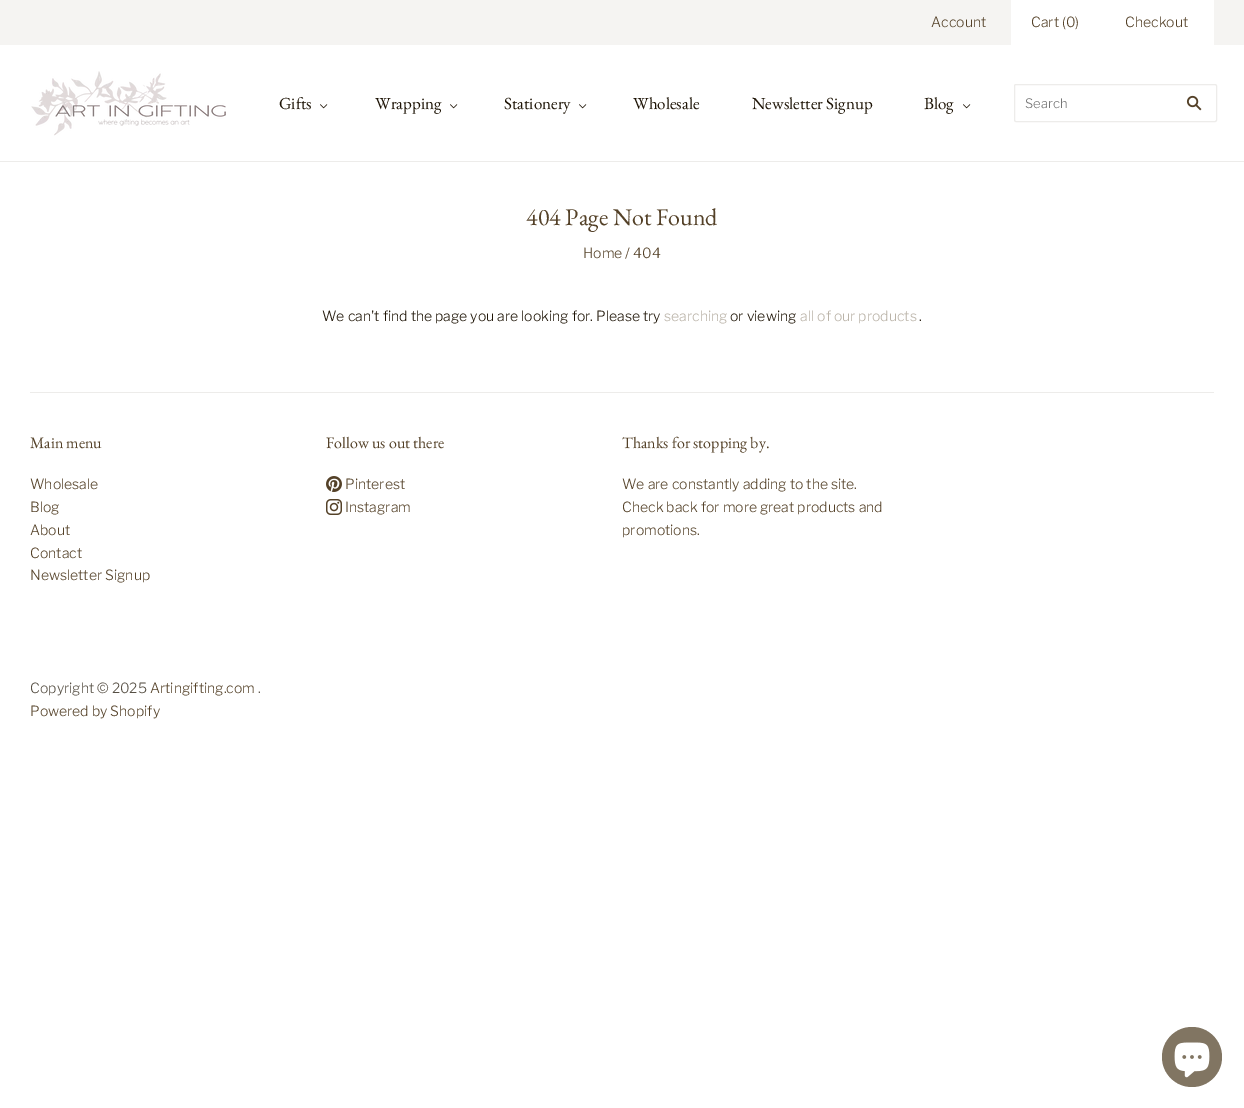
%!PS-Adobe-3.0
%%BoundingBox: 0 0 1244 1108
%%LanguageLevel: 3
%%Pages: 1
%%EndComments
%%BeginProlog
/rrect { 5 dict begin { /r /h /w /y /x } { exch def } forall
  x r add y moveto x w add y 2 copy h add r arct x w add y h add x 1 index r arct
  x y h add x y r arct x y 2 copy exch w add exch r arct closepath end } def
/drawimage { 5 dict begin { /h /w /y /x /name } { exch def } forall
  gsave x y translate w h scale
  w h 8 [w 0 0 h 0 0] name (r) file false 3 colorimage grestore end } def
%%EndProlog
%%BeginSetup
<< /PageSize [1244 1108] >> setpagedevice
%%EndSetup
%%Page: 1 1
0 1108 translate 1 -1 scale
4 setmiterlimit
1 setgray
0 0 1244 1108 rectfill
0.929 0.925 0.918 setrgbcolor
0 161 1244 1 rectfill
0.961 0.957 0.949 setrgbcolor
0 0 1244 45 rectfill
1 setgray
1011 0 203 45 rectfill
(images/1.raw) 31 71 195 65 drawimage
(images/2.raw) 320 104 8 5 drawimage
(images/2.raw) 450 104 8 5 drawimage
(images/2.raw) 579 104 8 5 drawimage
(images/2.raw) 963 104 8 5 drawimage
0.929 0.925 0.918 setrgbcolor
1014.5 84.5 202 37 1.5 rrect stroke
(images/3.raw) 1186 95 16 16 drawimage
30 392 1184 1 rectfill
(images/4.raw) 326 476 16 16 drawimage
(images/5.raw) 326 499 16 16 drawimage
0.506 0.459 0.384 setrgbcolor
newpath 1192 1057 30 0 360 arc closepath fill
(images/6.raw) 1174 1042 36 36 drawimage
/LibreFranklin-Light [14 0 0 -14 0 0] selectfont
0.329 0.255 0.157 setrgbcolor
931 27 moveto (Account) show
1031 27 moveto (Cart \(0\)) show
1125 27 moveto (Checkout) show
/EBGaramond-Regular [17 0 0 -17 0 0] selectfont
0.118 0.078 0.024 setrgbcolor
279 109 moveto (Gifts) show
375 109 moveto (Wrapping) show
504 109 moveto (Stationery) show
633 109 moveto (Wholesale) show
752 109 moveto (Newsletter Signup) show
924 109 moveto (Blog) show
/LibreFranklin-Light [13 0 0 -13 0 0] selectfont
0.459 setgray
1025 108 moveto (Search) show
/EBGaramond-Regular [24 0 0 -24 0 0] selectfont
0.329 0.255 0.157 setrgbcolor
526 225 moveto (404 Page Not Found) show
/LibreFranklin-Light [14 0 0 -14 0 0] selectfont
583 258 moveto (Home / 404) show
0.118 0.078 0.024 setrgbcolor
322 321 moveto (We can't find the page you are looking for. Please try) show
0.729 0.702 0.659 setrgbcolor
664 321 moveto (searching) show
0.118 0.078 0.024 setrgbcolor
730 321 moveto (or viewing) show
0.729 0.702 0.659 setrgbcolor
800 321 moveto (all of our products) show
0.118 0.078 0.024 setrgbcolor
919 321 moveto (.) show
/EBGaramond-Regular [16 0 0 -16 0 0] selectfont
0.329 0.255 0.157 setrgbcolor
30 448 moveto (Main menu) show
/LibreFranklin-Light [14 0 0 -14 0 0] selectfont
30 489 moveto (Wholesale) show
30 512 moveto (Blog) show
30 535 moveto (About) show
30 558 moveto (Contact) show
30 580 moveto (Newsletter Signup) show
/EBGaramond-Regular [16 0 0 -16 0 0] selectfont
326 448 moveto (Follow us out there) show
/LibreFranklin-Light [14 0 0 -14 0 0] selectfont
345 489 moveto (Pinterest) show
345 512 moveto (Instagram) show
/EBGaramond-Regular [16 0 0 -16 0 0] selectfont
622 448 moveto (Thanks for stopping by.) show
/LibreFranklin-Light [14 0 0 -14 0 0] selectfont
622 489 moveto (We are constantly adding to the site.) show
622 512 moveto (Check back for more great products and) show
622 535 moveto (promotions.) show
0.337 0.31 0.267 setrgbcolor
30 693 moveto (Copyright © 2025) show
0.329 0.255 0.157 setrgbcolor
150 693 moveto (Artingifting.com) show
0.337 0.31 0.267 setrgbcolor
258 693 moveto (.) show
0.329 0.255 0.157 setrgbcolor
30 716 moveto (Powered by Shopify) show
showpage
%%EOF
